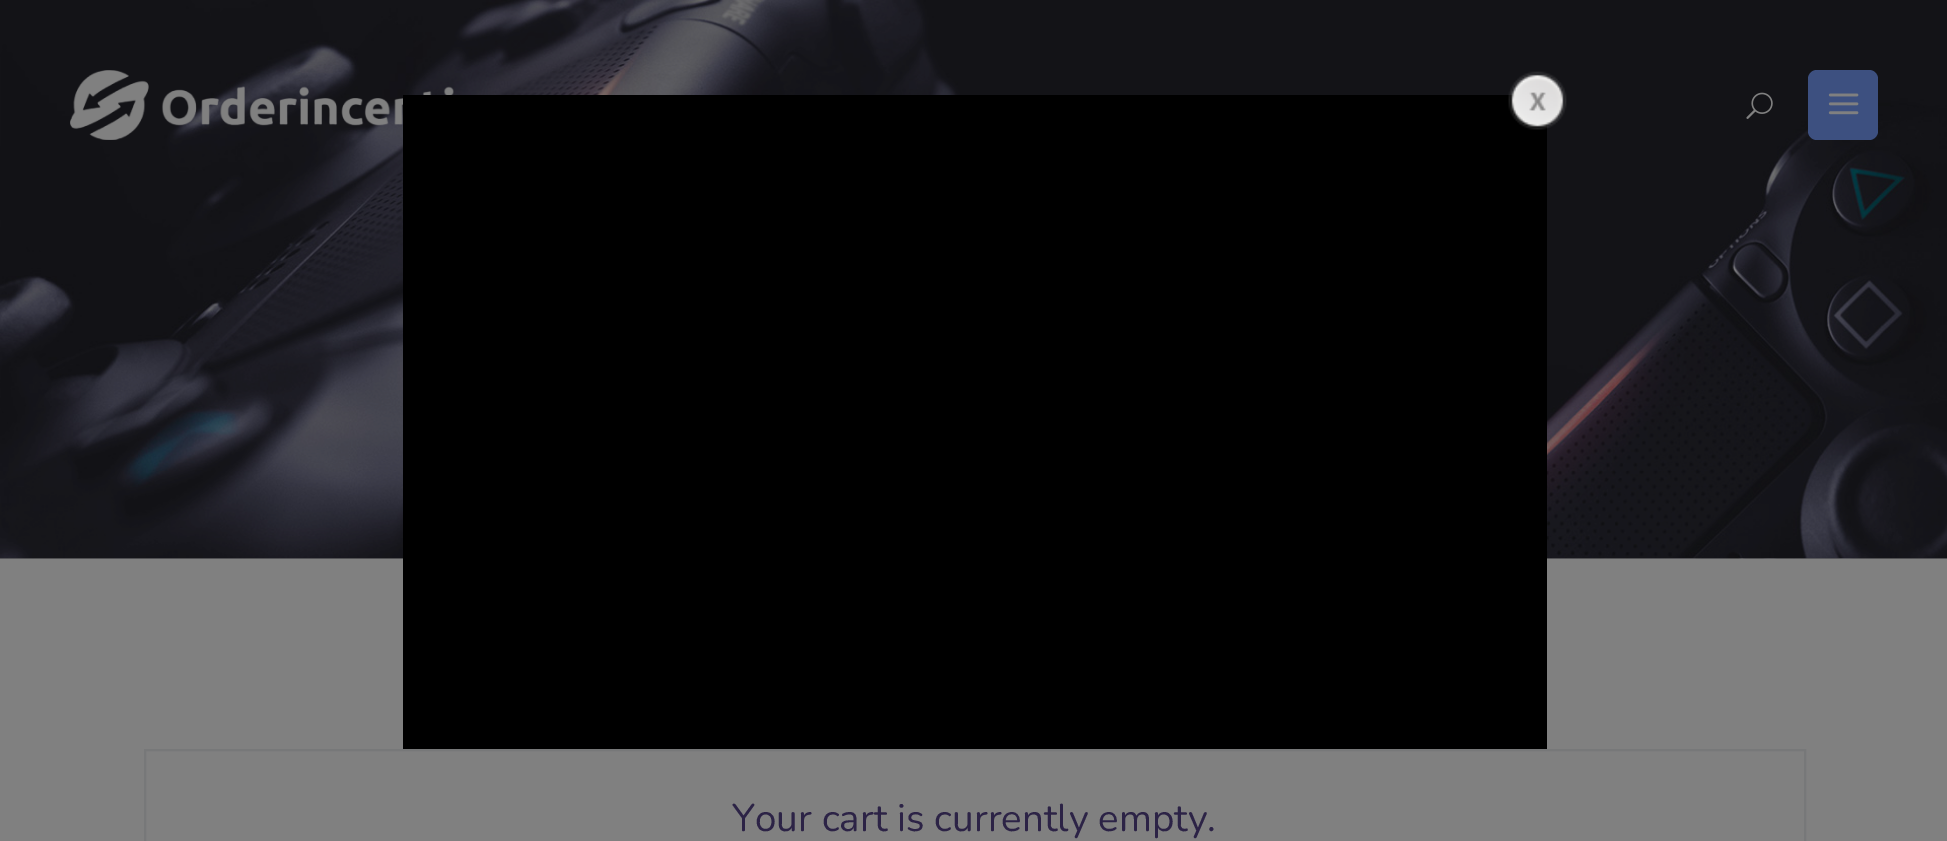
%!PS-Adobe-3.0
%%BoundingBox: 0 0 1947 841
%%LanguageLevel: 3
%%Pages: 1
%%EndComments
%%BeginProlog
/rrect { 5 dict begin { /r /h /w /y /x } { exch def } forall
  x r add y moveto x w add y 2 copy h add r arct x w add y h add x 1 index r arct
  x y h add x y r arct x y 2 copy exch w add exch r arct closepath end } def
/drawimage { 5 dict begin { /h /w /y /x /name } { exch def } forall
  gsave x y translate w h scale
  w h 8 [w 0 0 h 0 0] name (r) file false 3 colorimage grestore end } def
%%EndProlog
%%BeginSetup
<< /PageSize [1947 841] >> setpagedevice
%%EndSetup
%%Page: 1 1
0 841 translate 1 -1 scale
4 setmiterlimit
0.502 setgray
0 0 1947 841 rectfill
(images/5.raw) 0 558 1947 1 drawimage
(images/6.raw) 0 0 1947 559 drawimage
(images/2.raw) 70 70 384 70 drawimage
0 setgray
403 95 1144 654 rectfill
(images/1.raw) 1508 71 59 59 drawimage
(images/3.raw) 1746 92 27 27 drawimage
0.239 0.314 0.502 setrgbcolor
1808 70 70 70 9 rrect fill
(images/4.raw) 1828 93 31 22 drawimage
0.467 0.471 0.475 setrgbcolor
2 setlinewidth
145 750 1660 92 rectstroke
/Nunito-Regular [38.5 0 0 -38.5 0 0] selectfont
0.173 0.137 0.275 setrgbcolor
732 831 moveto (Your cart is currently empty.) show
showpage
%%EOF
